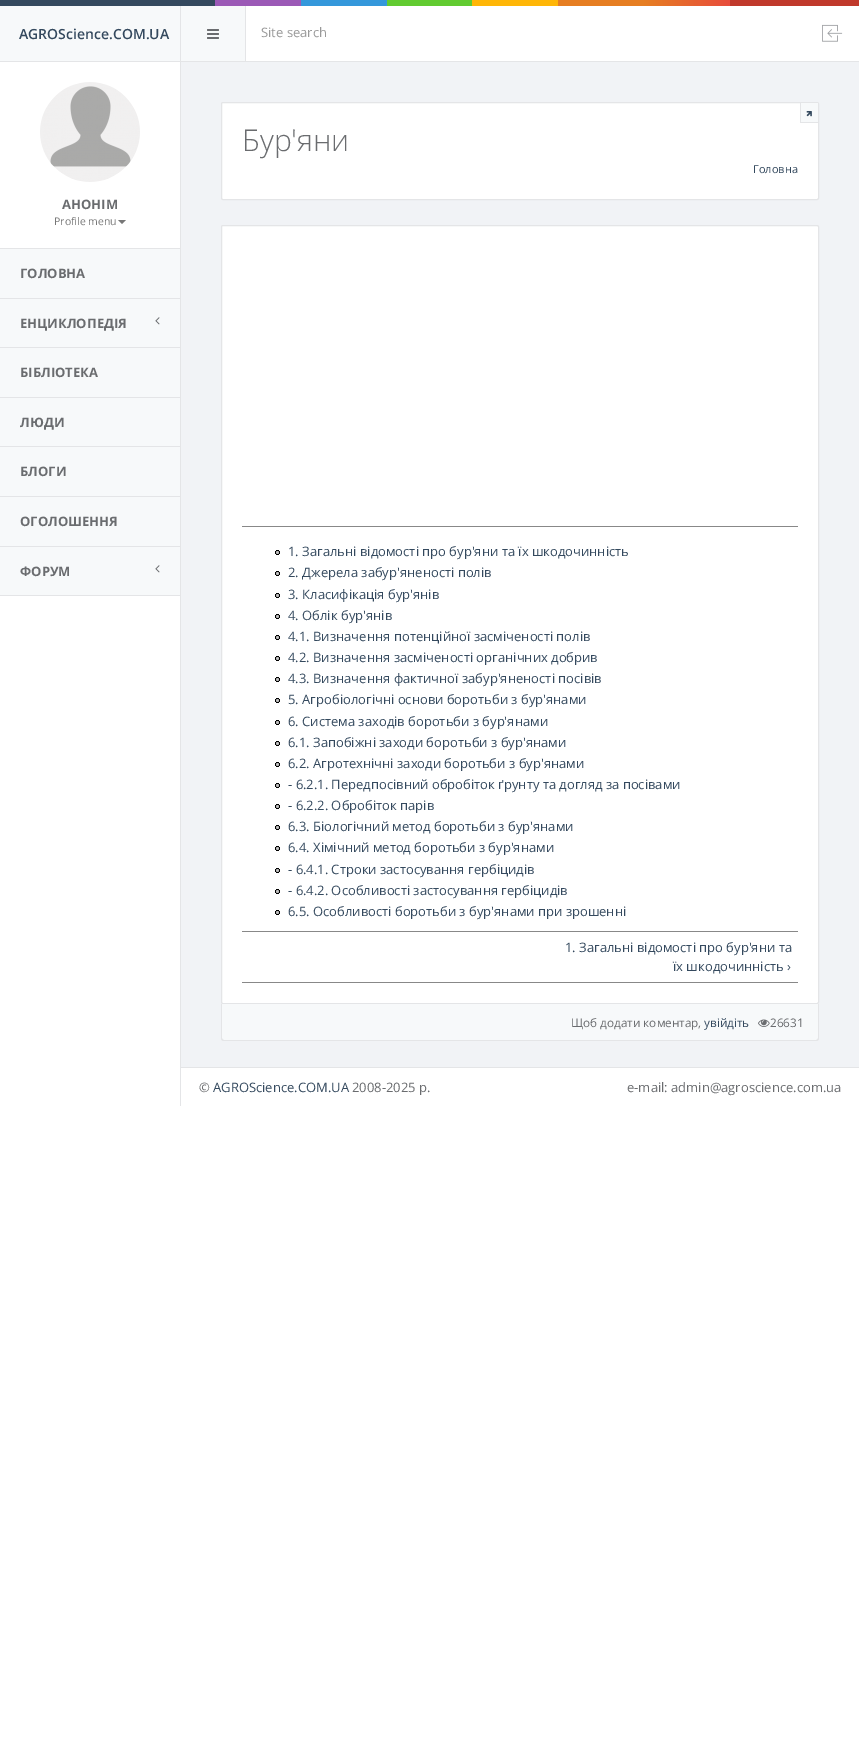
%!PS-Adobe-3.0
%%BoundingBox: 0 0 859 1762
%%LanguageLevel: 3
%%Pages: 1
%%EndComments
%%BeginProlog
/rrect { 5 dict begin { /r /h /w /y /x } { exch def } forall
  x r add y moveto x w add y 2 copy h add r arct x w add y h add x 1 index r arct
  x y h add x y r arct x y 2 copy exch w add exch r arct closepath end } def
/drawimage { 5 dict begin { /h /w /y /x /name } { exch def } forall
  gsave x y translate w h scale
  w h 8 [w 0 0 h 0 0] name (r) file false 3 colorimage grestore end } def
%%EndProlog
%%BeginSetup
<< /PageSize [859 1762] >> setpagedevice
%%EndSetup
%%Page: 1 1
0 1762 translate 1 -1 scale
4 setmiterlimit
1 setgray
0 0 859 1762 rectfill
0.894 0.898 0.906 setrgbcolor
0 61 859 1 rectfill
gsave newpath 0 0 moveto 859 0 lineto 859 6 lineto 0 6 lineto closepath clip newpath
<< /ShadingType 2 /ColorSpace /DeviceRGB /Coords [0 3 859 3] /Extend [true true] /Function << /FunctionType 3 /Domain [0 1] /Functions [<< /FunctionType 2 /Domain [0 1] /C0 [0.204 0.286 0.369] /C1 [0.204 0.286 0.369] /N 1 >> << /FunctionType 2 /Domain [0 1] /C0 [0.608 0.349 0.714] /C1 [0.608 0.349 0.714] /N 1 >> << /FunctionType 2 /Domain [0 1] /C0 [0.204 0.596 0.859] /C1 [0.204 0.596 0.859] /N 1 >> << /FunctionType 2 /Domain [0 1] /C0 [0.384 0.796 0.192] /C1 [0.384 0.796 0.192] /N 1 >> << /FunctionType 2 /Domain [0 1] /C0 [1 0.714 0.024] /C1 [1 0.714 0.024] /N 1 >> << /FunctionType 2 /Domain [0 1] /C0 [0.902 0.494 0.133] /C1 [0.902 0.494 0.133] /N 1 >> << /FunctionType 2 /Domain [0 1] /C0 [0.902 0.494 0.133] /C1 [0.906 0.298 0.235] /N 1 >> << /FunctionType 2 /Domain [0 1] /C0 [0.753 0.224 0.169] /C1 [0.753 0.224 0.169] /N 1 >>] /Bounds [0.25 0.35 0.45 0.55 0.65 0.75 0.85] /Encode [0 1 0 1 0 1 0 1 0 1 0 1 0 1 0 1] >> >> shfill grestore
0.969 0.976 0.98 setrgbcolor
0 6 180 55 rectfill
181 6 64 55 rectfill
0.894 0.898 0.906 setrgbcolor
245 6 1 55 rectfill
180 6 1 55 rectfill
(images/1.raw) 207 29 12 10 drawimage
(images/2.raw) 822 24 21 18 drawimage
(images/3.raw) 40 82 100 100 drawimage
0.467 setgray
newpath 118 220 moveto 126 220 lineto 122 224 lineto closepath fill
0.969 0.976 0.98 setrgbcolor
0 249 180 346 rectfill
0.894 0.898 0.906 setrgbcolor
0 248 180 1 rectfill
0 298 180 1 rectfill
0 347 180 1 rectfill
(images/4.raw) 155 317 5 8 drawimage
0 397 180 1 rectfill
0 446 180 1 rectfill
0 496 180 1 rectfill
0 546 180 1 rectfill
0 595 180 1 rectfill
(images/4.raw) 155 565 5 8 drawimage
0.945 0.953 0.965 setrgbcolor
181 62 678 1005 rectfill
0.894 0.898 0.906 setrgbcolor
180 62 1 1044 rectfill
1 setgray
221.5 102.5 597 97 1.5 rrect gsave fill grestore
0.894 0.898 0.906 setrgbcolor
stroke
0.969 0.976 0.98 setrgbcolor
801 103 17 19 rectfill
0.894 0.898 0.906 setrgbcolor
800 122 18 1 rectfill
800 103 1 20 rectfill
(images/5.raw) 806 111 6 6 drawimage
1 setgray
221.5 225.5 597 778 1.5 rrect gsave fill grestore
0.894 0.898 0.906 setrgbcolor
stroke
0.533 setgray
242 526 556 1 rectfill
(images/6.raw) 275 550 5 5 drawimage
(images/6.raw) 275 571 5 5 drawimage
(images/6.raw) 275 593 5 5 drawimage
(images/6.raw) 275 614 5 5 drawimage
(images/6.raw) 275 635 5 5 drawimage
(images/6.raw) 275 656 5 5 drawimage
(images/6.raw) 275 677 5 5 drawimage
(images/6.raw) 275 698 5 5 drawimage
(images/6.raw) 275 720 5 5 drawimage
(images/6.raw) 275 741 5 5 drawimage
(images/6.raw) 275 762 5 5 drawimage
(images/6.raw) 275 783 5 5 drawimage
(images/6.raw) 275 804 5 5 drawimage
(images/6.raw) 275 825 5 5 drawimage
(images/6.raw) 275 846 5 5 drawimage
(images/6.raw) 275 868 5 5 drawimage
(images/6.raw) 275 889 5 5 drawimage
(images/6.raw) 275 910 5 5 drawimage
242 931 556 1 rectfill
242 982 556 1 rectfill
0.969 0.976 0.98 setrgbcolor
newpath 221 1004 moveto 819 1004 lineto 819 1038 lineto 819 1039.5 817.5 1041 816 1041 curveto 224 1041 lineto 222.5 1041 221 1039.5 221 1038 curveto closepath fill
0.894 0.898 0.906 setrgbcolor
newpath 221 1004 moveto 819 1004 lineto 819 1038 lineto 819 1040 818 1041 816 1041 curveto 224 1041 lineto 222 1041 221 1040 221 1038 curveto closepath 222 1004 moveto 818 1004 lineto 818 1038 lineto 818 1039 817 1040 816 1040 curveto 224 1040 lineto 223 1040 222 1039 222 1038 curveto closepath eofill
(images/7.raw) 758 1019 12 8 drawimage
181 1067 678 1 rectfill
/OpenSans-SemiBold [14 0 0 -14 0 0] selectfont
0.204 0.286 0.369 setrgbcolor
19 39 moveto (AGROScience.COM.UA) show
/OpenSans-Regular [13 0 0 -13 0 0] selectfont
0.6 setgray
261 37 moveto (Site search) show
/OpenSans-Bold [13 0 0 -13 0 0] selectfont
0.416 0.424 0.435 setrgbcolor
62 209 moveto (АНОНІМ) show
/OpenSans-Regular [10.5 0 0 -10.5 0 0] selectfont
0.467 setgray
54 225 moveto (Profile menu) show
/OpenSans-Bold [13 0 0 -13 0 0] selectfont
0.416 0.424 0.435 setrgbcolor
20 278 moveto (ГОЛОВНА) show
20 328 moveto (ЕНЦИКЛОПЕДІЯ) show
20 377 moveto (БІБЛІОТЕКА) show
20 427 moveto (ЛЮДИ) show
20 476 moveto (БЛОГИ) show
20 526 moveto (ОГОЛОШЕННЯ) show
20 576 moveto (ФОРУМ) show
/OpenSans-Light [30 0 0 -30 0 0] selectfont
242 151 moveto (Бур'яни) show
/OpenSans-Regular [11 0 0 -11 0 0] selectfont
0.204 0.286 0.369 setrgbcolor
753 173 moveto (Головна) show
/OpenSans-Regular [13 0 0 -13 0 0] selectfont
288 556 moveto (1. Загальні відомості про бур'яни та їх шкодочинність) show
288 577 moveto (2. Джерела забур'яненості полів) show
288 599 moveto (3. Класифікація бур'янів) show
288 620 moveto (4. Облік бур'янів) show
288 641 moveto (4.1. Визначення потенційної засміченості полів) show
288 662 moveto (4.2. Визначення засміченості органічних добрив) show
288 683 moveto (4.3. Визначення фактичної забур'яненості посівів) show
288 704 moveto (5. Агробіологічні основи боротьби з бур'янами) show
288 726 moveto (6. Система заходів боротьби з бур'янами) show
288 747 moveto (6.1. Запобіжні заходи боротьби з бур'янами) show
288 768 moveto (6.2. Агротехнічні заходи боротьби з бур'янами) show
288 789 moveto (- 6.2.1. Передпосівний обробіток ґрунту та догляд за посівами) show
288 810 moveto (- 6.2.2. Обробіток парів) show
288 831 moveto (6.3. Біологічний метод боротьби з бур'янами) show
288 852 moveto (6.4. Хімічний метод боротьби з бур'янами) show
288 874 moveto (- 6.4.1. Строки застосування гербіцидів) show
288 895 moveto (- 6.4.2. Особливості застосування гербіцидів) show
288 916 moveto (6.5. Особливості боротьби з бур'янами при зрошенні) show
565 952 moveto (1. Загальні відомості про бур'яни та) show
673 971 moveto (їх шкодочинність ›) show
/OpenSans-Regular [11.75 0 0 -11.75 0 0] selectfont
0.416 0.424 0.435 setrgbcolor
571 1027 moveto (Щоб додати коментар,) show
0.204 0.286 0.369 setrgbcolor
704 1027 moveto (увійдіть) show
0.416 0.424 0.435 setrgbcolor
770 1027 moveto (26631) show
/OpenSans-Regular [13 0 0 -13 0 0] selectfont
199 1092 moveto (©) show
0.204 0.286 0.369 setrgbcolor
213 1092 moveto (AGROScience.COM.UA) show
0.416 0.424 0.435 setrgbcolor
352 1092 moveto (2008-2025 р.) show
627 1092 moveto (e-mail: admin@agroscience.com.ua) show
showpage
%%EOF
